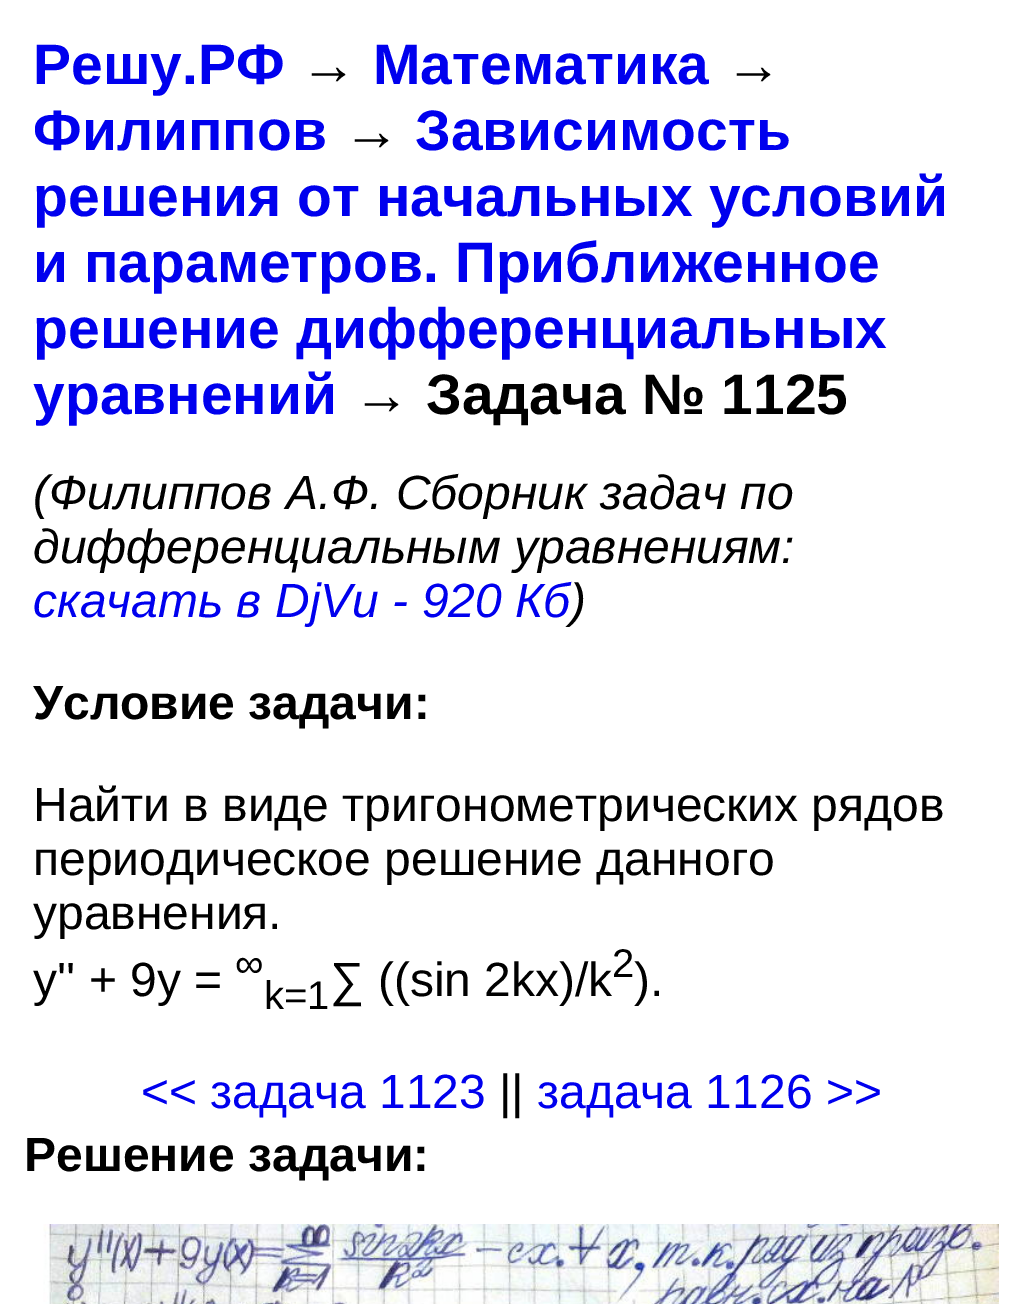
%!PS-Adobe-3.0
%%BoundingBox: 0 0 1023 1304
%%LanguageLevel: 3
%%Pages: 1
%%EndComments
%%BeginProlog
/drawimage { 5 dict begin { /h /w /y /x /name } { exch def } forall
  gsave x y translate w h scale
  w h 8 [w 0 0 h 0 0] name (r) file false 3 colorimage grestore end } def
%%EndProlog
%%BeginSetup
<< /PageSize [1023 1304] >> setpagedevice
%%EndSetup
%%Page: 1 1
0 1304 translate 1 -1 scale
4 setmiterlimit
1 setgray
0 0 1023 1304 rectfill
(images/1.raw) 43 1224 956 80 drawimage
/LiberationSans-Bold [57 0 0 -57 0 0] selectfont
0 0 0.933 setrgbcolor
33 84 moveto (Решу.РФ) show
0 setgray
300 84 moveto (→) show
0 0 0.933 setrgbcolor
373 84 moveto (Математика) show
0 setgray
725 84 moveto (→) show
0 0 0.933 setrgbcolor
33 150 moveto (Филиппов) show
0 setgray
343 150 moveto (→) show
0 0 0.933 setrgbcolor
415 150 moveto (Зависимость) show
33 216 moveto (решения от начальных условий) show
33 282 moveto (и параметров. Приближенное) show
33 348 moveto (решение дифференциальных) show
33 414 moveto (уравнений) show
0 setgray
353 414 moveto (→ Задача № 1125) show
/LiberationSans-Italic [48 0 0 -48 0 0] selectfont
33 509 moveto (\(Филиппов А.Ф. Сборник задач по) show
33 563 moveto (дифференциальным уравнениям:) show
0 0 0.933 setrgbcolor
33 617 moveto (скачать в DjVu - 920 Кб) show
0 setgray
570 617 moveto (\)) show
/LiberationSans-Bold [48 0 0 -48 0 0] selectfont
33 719 moveto (Условие задачи:) show
/LiberationSans-Regular [48 0 0 -48 0 0] selectfont
33 821 moveto (Найти в виде тригонометрических рядов) show
33 875 moveto (периодическое решение данного) show
33 929 moveto (уравнения.) show
33 996 moveto (y'' + 9y =) show
/LiberationSans-Regular [40 0 0 -40 0 0] selectfont
235 977 moveto (∞) show
264 1009 moveto (k=1) show
/LiberationSans-Regular [48 0 0 -48 0 0] selectfont
330 996 moveto (∑ \(\(sin 2kx\)/k) show
/LiberationSans-Regular [40 0 0 -40 0 0] selectfont
612 977 moveto (2) show
/LiberationSans-Regular [48 0 0 -48 0 0] selectfont
634 996 moveto (\).) show
0 0 0.933 setrgbcolor
141 1108 moveto (<< задача 1123) show
0 setgray
499 1108 moveto (||) show
0 0 0.933 setrgbcolor
537 1108 moveto (задача 1126 >>) show
/LiberationSans-Bold [48 0 0 -48 0 0] selectfont
0 setgray
24 1171 moveto (Решение задачи:) show
showpage
%%EOF
